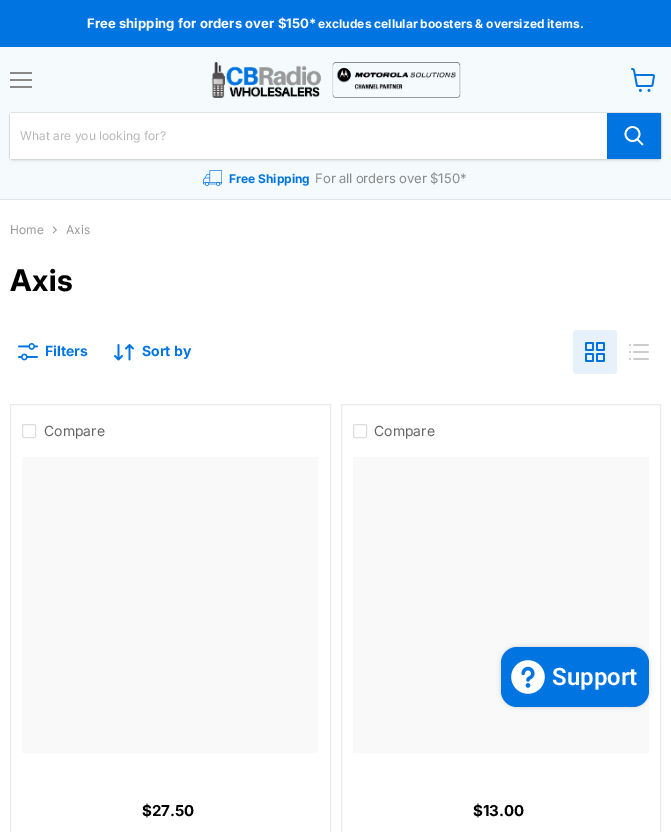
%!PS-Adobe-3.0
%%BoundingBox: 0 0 671 832
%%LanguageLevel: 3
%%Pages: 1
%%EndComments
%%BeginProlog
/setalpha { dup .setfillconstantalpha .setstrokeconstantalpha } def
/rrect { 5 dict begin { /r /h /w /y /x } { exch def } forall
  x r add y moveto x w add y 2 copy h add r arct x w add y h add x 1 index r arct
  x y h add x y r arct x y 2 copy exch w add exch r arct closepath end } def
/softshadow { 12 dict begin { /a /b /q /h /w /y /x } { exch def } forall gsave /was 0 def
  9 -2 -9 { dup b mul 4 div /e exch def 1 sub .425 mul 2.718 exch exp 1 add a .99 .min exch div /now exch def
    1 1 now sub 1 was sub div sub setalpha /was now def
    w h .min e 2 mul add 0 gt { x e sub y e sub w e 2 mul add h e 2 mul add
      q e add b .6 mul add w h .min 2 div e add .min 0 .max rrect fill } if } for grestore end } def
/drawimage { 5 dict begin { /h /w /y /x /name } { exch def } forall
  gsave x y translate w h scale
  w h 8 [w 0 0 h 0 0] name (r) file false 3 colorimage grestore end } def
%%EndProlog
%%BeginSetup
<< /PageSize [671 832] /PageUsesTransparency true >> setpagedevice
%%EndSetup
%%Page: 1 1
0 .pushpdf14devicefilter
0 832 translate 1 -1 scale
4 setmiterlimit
1 setgray
0 0 671 832 rectfill
0 0.455 0.882 setrgbcolor
0 0 671 47 rectfill
0.961 0.984 0.992 setrgbcolor
0 47 671 152 rectfill
0.867 0.902 0.918 setrgbcolor
0 199 671 1 rectfill
0.533 setgray
10 72 22 2 rectfill
10 79 22 2 rectfill
10 86 22 2 rectfill
(images/1.raw) 631 68 24 24 drawimage
(images/2.raw) 211 62 250 36 drawimage
0.502 setgray
9 114 653 48 4 1.5 0.11 softshadow
0.2 setalpha
9.5 112.5 652 47 3.5 rrect stroke
1 setalpha
1 setgray
10 113 597 46 rectfill
0 0.455 0.882 setrgbcolor
607 113 54 46 rectfill
1 setgray
1.7 setlinewidth
1 setlinecap
newpath 642.5 144.5 moveto 637.5 139.5 lineto stroke
0 setlinecap
newpath 632.5 134 7 0 360 arc closepath stroke
(images/3.raw) 203 170 19 16 drawimage
(images/4.raw) 52 226 5 8 drawimage
(images/5.raw) 18 343 20 18 drawimage
(images/6.raw) 114 344 20 17 drawimage
0.902 0.945 0.988 setrgbcolor
573 330 44 44 3 rrect fill
(images/7.raw) 585 342 20 20 drawimage
(images/8.raw) 629 344 20 16 drawimage
0.922 setgray
1 setlinewidth
10.5 404.5 320 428 rectstroke
0.867 setgray
22.5 424.5 13 13 1.5 rrect stroke
0.976 setgray
22 457 296 296 rectfill
0.922 setgray
341.5 404.5 319 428 rectstroke
0.867 setgray
353.5 424.5 13 13 1.5 rrect stroke
0.976 setgray
353 457 296 296 rectfill
0 setgray
501 647 148 60 16 2.5 0.15 softshadow
0 0.455 0.882 setrgbcolor
501 647 148 60 16 rrect fill
(images/9.raw) 511 660 34 34 drawimage
/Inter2-Bold [13.1 0 0 -13.1 0 0] selectfont
1 setgray
87 28 moveto 0.25 0 32 (Free shipping for orders over $150*) widthshow
/Inter2-Bold [12 0 0 -12 0 0] selectfont
318 28 moveto (excludes cellular boosters & oversized items.) show
/Inter-Regular [12 0 0 -12 0 0] selectfont
0.722 setgray
20 140 moveto (What are you looking for?) show
/Inter2-Bold [12 0 0 -12 0 0] selectfont
0 0.455 0.882 setrgbcolor
229 183 moveto (Free Shipping) show
/Inter-Regular [13.1 0 0 -13.1 0 0] selectfont
0.533 setgray
315 183 moveto -0.5 0 32 (For all orders over $150*) widthshow
/Inter-Regular [12 0 0 -12 0 0] selectfont
0.6 setgray
10 234 moveto (Home) show
66 234 moveto (Axis) show
/Inter-Bold [30 0 0 -30 0 0] selectfont
0 setgray
10 291 moveto 0.5 0 (Axis) ashow
/Inter2-Bold [14 0 0 -14 0 0] selectfont
0 0.455 0.882 setrgbcolor
45 356 moveto (Filters) show
142 356 moveto (Sort by) show
/Inter-Regular [14 0 0 -14 0 0] selectfont
0.4 setgray
44 436 moveto (Compare) show
/Inter2-Bold [15 0 0 -15 0 0] selectfont
0 setgray
142 816 moveto ($27.50) show
/Inter-Regular [14 0 0 -14 0 0] selectfont
0.4 setgray
374 436 moveto (Compare) show
/Inter2-Bold [15 0 0 -15 0 0] selectfont
0 setgray
473 816 moveto ($13.00) show
/Roboto-SemiBold [24 0 0 -24 0 0] selectfont
1 setgray
552 685 moveto (Support) show
.poppdf14devicefilter showpage
%%EOF
